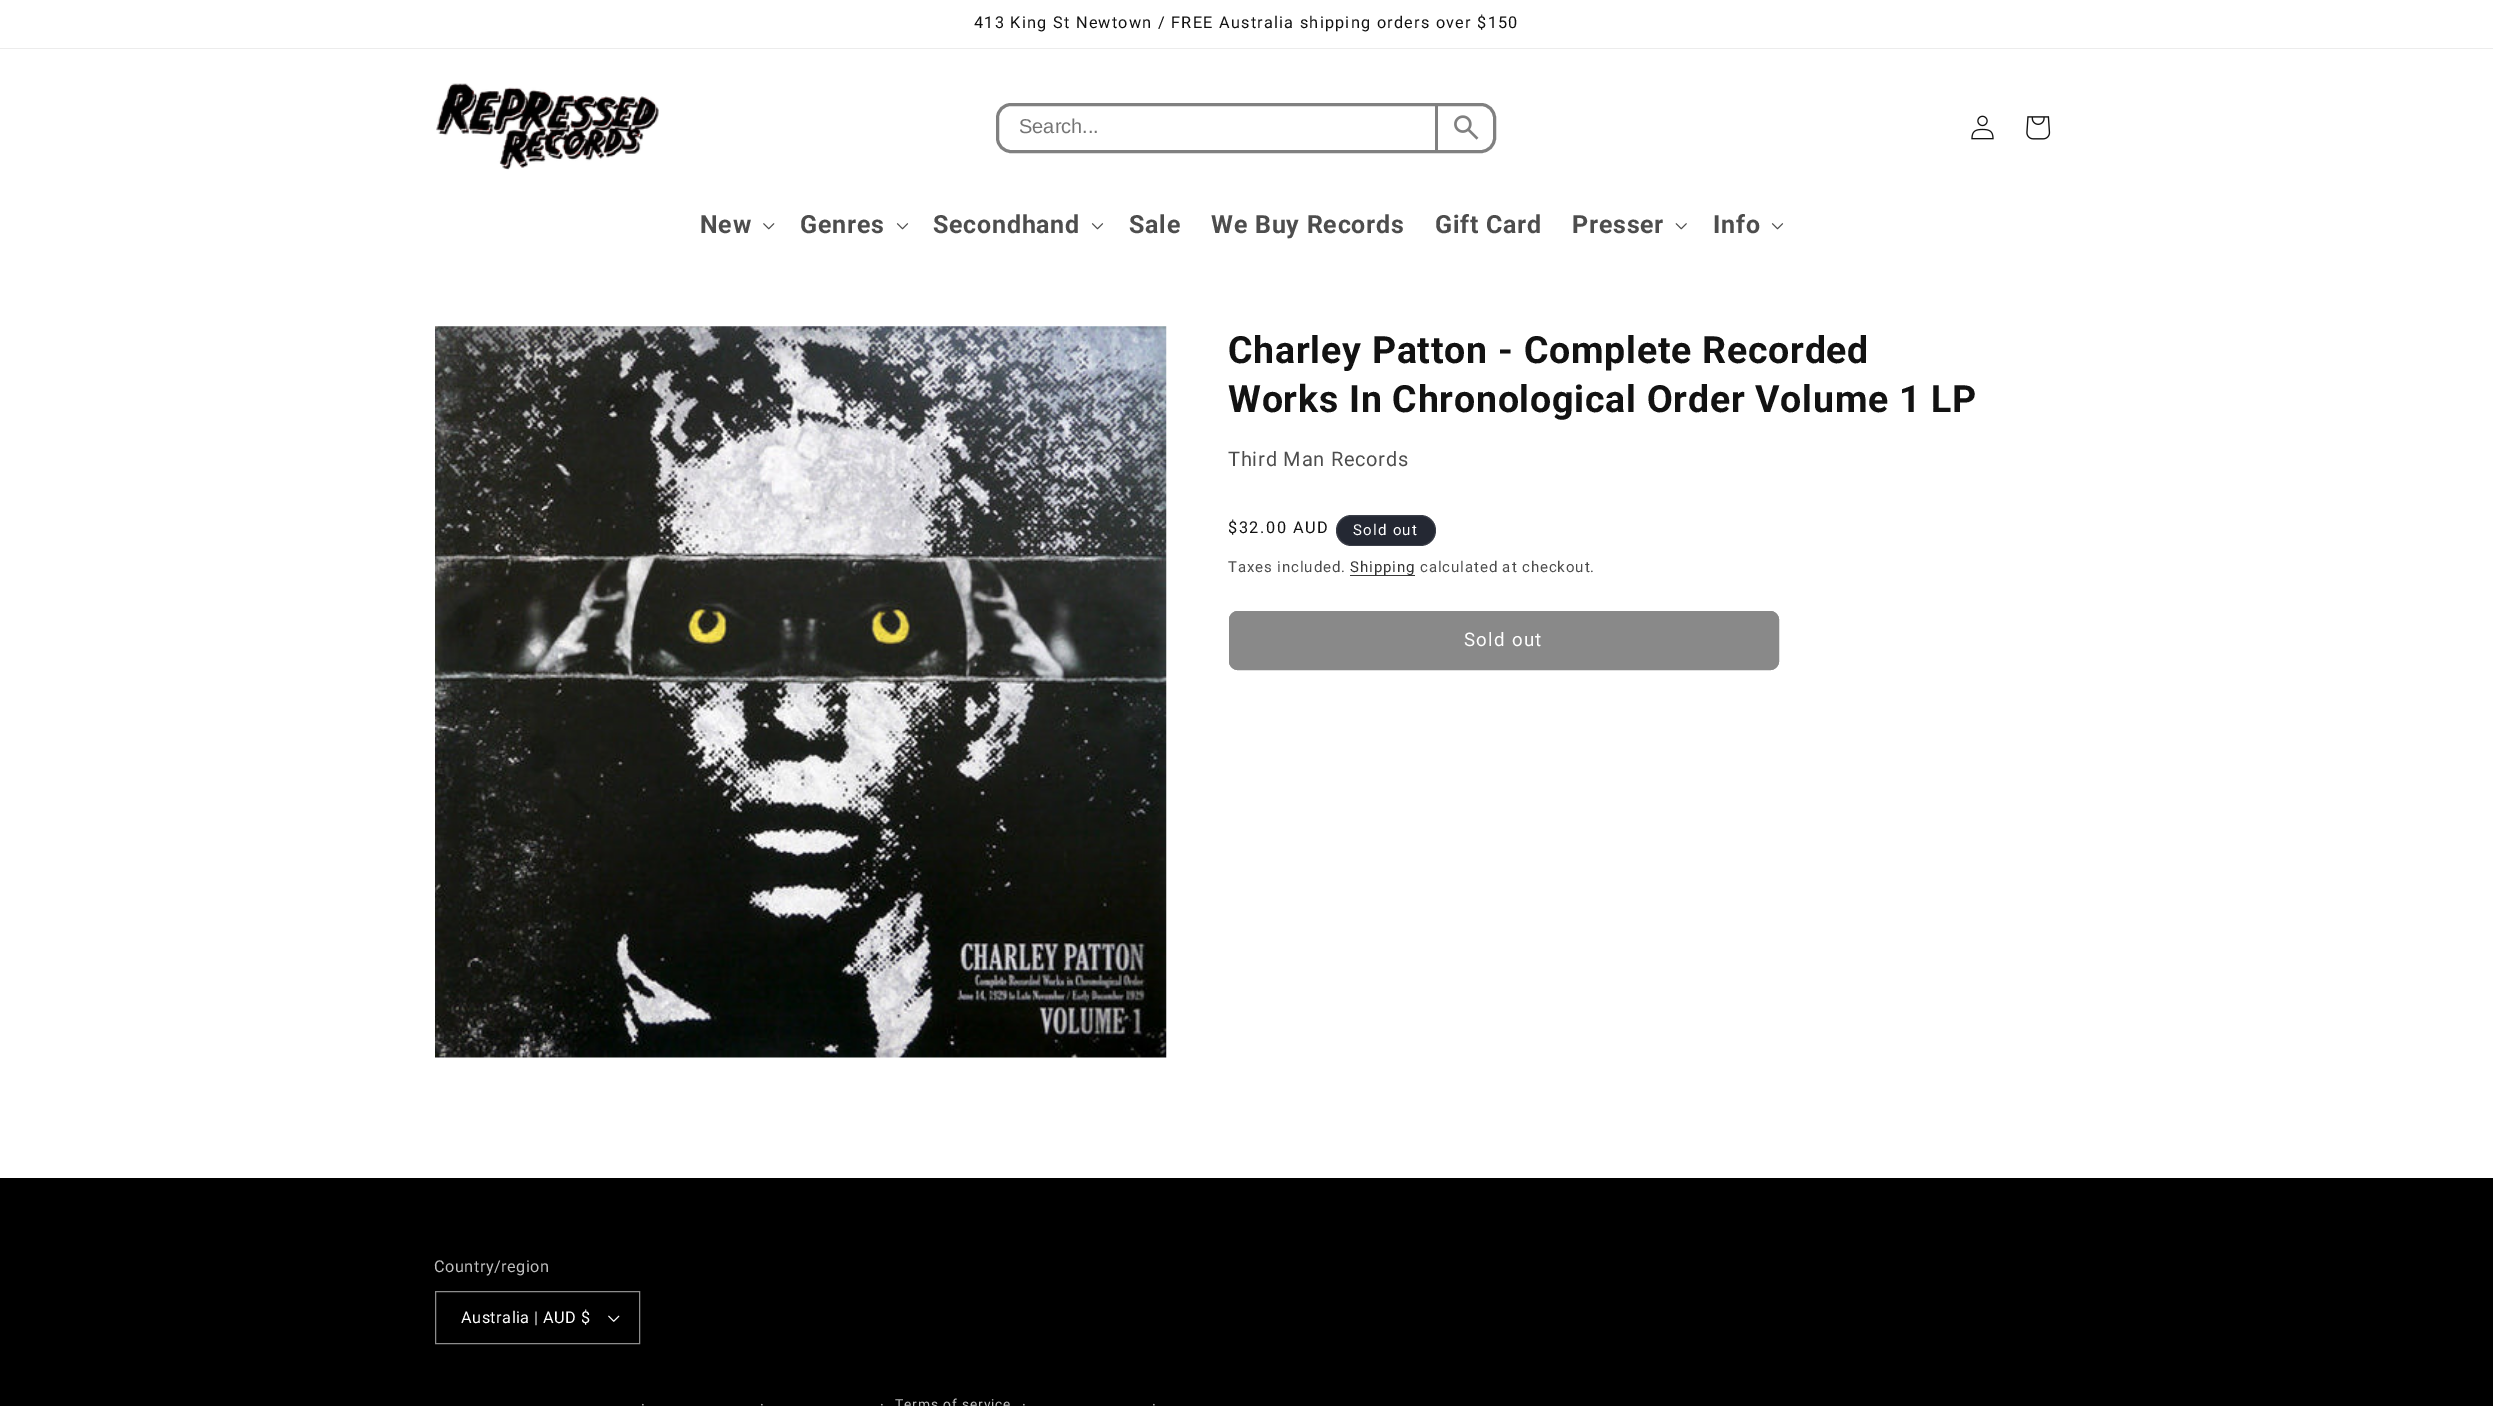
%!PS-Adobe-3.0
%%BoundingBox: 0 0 2493 1406
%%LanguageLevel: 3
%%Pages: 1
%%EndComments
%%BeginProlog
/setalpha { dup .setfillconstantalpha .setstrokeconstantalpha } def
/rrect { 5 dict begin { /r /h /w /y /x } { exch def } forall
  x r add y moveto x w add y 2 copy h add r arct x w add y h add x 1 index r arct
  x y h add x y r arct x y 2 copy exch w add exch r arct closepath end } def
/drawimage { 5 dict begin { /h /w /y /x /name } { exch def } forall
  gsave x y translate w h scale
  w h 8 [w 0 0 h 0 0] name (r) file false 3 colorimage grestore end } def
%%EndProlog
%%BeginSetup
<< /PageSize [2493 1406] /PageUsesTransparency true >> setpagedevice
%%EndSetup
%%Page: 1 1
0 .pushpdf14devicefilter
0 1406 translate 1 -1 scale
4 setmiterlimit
1 setgray
0 0 2493 1406 rectfill
0.925 setgray
0 48 2493 1 rectfill
(images/1.raw) 436 83 223 87 drawimage
0.502 setgray
3 setlinewidth
997.5 104.5 497 47 13.5 rrect stroke
1435 105 3 45 rectfill
(images/2.raw) 1454 115 25 25 drawimage
(images/3.raw) 1971 115 23 25 drawimage
(images/4.raw) 2026 116 25 24 drawimage
(images/5.raw) 763 223 12 7 drawimage
(images/6.raw) 896 223 13 7 drawimage
(images/6.raw) 1091 223 13 7 drawimage
(images/7.raw) 1675 223 12 7 drawimage
(images/6.raw) 1771 223 13 7 drawimage
(images/8.raw) 435 326 732 732 drawimage
0.141 0.157 0.2 setrgbcolor
1336 515 100 31 15.5 rrect fill
0.1 setalpha
1 setgray
1 setlinewidth
1336.5 515.5 99 30 15 rrect stroke
1 setalpha
0.212 setgray
1350 575 65 1 rectfill
0.537 setgray
1229 611 550 59 9 rrect fill
1229.5 611.5 549 58 8.5 rrect stroke
0 setgray
0 1178 2493 228 rectfill
(images/9.raw) 608 1315 12 7 drawimage
0.549 setgray
435.5 1291.5 204 52 rectstroke
/Roboto-Regular [16.25 0 0 -16.25 0 0] selectfont
0.071 setgray
974 28 moveto 1.25 0 (413 King St Newtown / FREE Australia shipping orders over $150) ashow
/LiberationSans-Regular [20 0 0 -20 0 0] selectfont
0.459 setgray
1019 133 moveto (Search...) show
/Roboto-Bold [25 0 0 -25 0 0] selectfont
0.302 setgray
700 233 moveto 0.75 0 (New) ashow
800 233 moveto 0.75 0 (Genres) ashow
933 233 moveto 0.75 0 (Secondhand) ashow
1129 233 moveto 0.75 0 (Sale) ashow
1211 233 moveto 0.75 0 (We Buy Records) ashow
1435 233 moveto 0.75 0 (Gift Card) ashow
1572 233 moveto 0.75 0 (Presser) ashow
1713 233 moveto 0.75 0 (Info) ashow
/Roboto-Bold [37.5 0 0 -37.5 0 0] selectfont
0.071 setgray
1228 363 moveto 0.75 0 (Charley Patton - Complete Recorded) ashow
1228 412 moveto 0.75 0 (Works In Chronological Order Volume 1 LP) ashow
/Roboto-Regular [20 0 0 -20 0 0] selectfont
0.302 setgray
1228 466 moveto 0.75 0 (Third Man Records) ashow
/Roboto-Regular [16.25 0 0 -16.25 0 0] selectfont
0.071 setgray
1228 533 moveto 1.6 0 ($32.00 AUD) ashow
/Roboto-Regular [15 0 0 -15 0 0] selectfont
1 setgray
1353 535 moveto 1.25 0 (Sold out) ashow
0.302 setgray
1228 572 moveto 0.9 0 (Taxes included.) ashow
0.208 setgray
1350 572 moveto 0.9 0 (Shipping) ashow
0.302 setgray
1420 572 moveto 0.9 0 (calculated at checkout.) ashow
/Roboto-Regular [18.75 0 0 -18.75 0 0] selectfont
1 setgray
1464 646 moveto 1.25 0 (Sold out) ashow
/Roboto-Regular [16.25 0 0 -16.25 0 0] selectfont
0.749 setgray
434 1272 moveto 0.5 0 (Country/region) ashow
1 setgray
461 1323 moveto 0.5 0 (Australia | AUD $) ashow
/Roboto-Regular [15 0 0 -15 0 0] selectfont
0.749 setgray
641 1410 moveto 0.9 0 (·) ashow
760 1410 moveto 0.9 0 (·) ashow
880 1410 moveto 0.9 0 (·) ashow
/Roboto-Regular [13.75 0 0 -13.75 0 0] selectfont
895 1409 moveto 0.9 0 (Terms of service) ashow
/Roboto-Regular [15 0 0 -15 0 0] selectfont
1022 1410 moveto 0.9 0 (·) ashow
1152 1410 moveto 0.9 0 (·) ashow
.poppdf14devicefilter showpage
%%EOF
